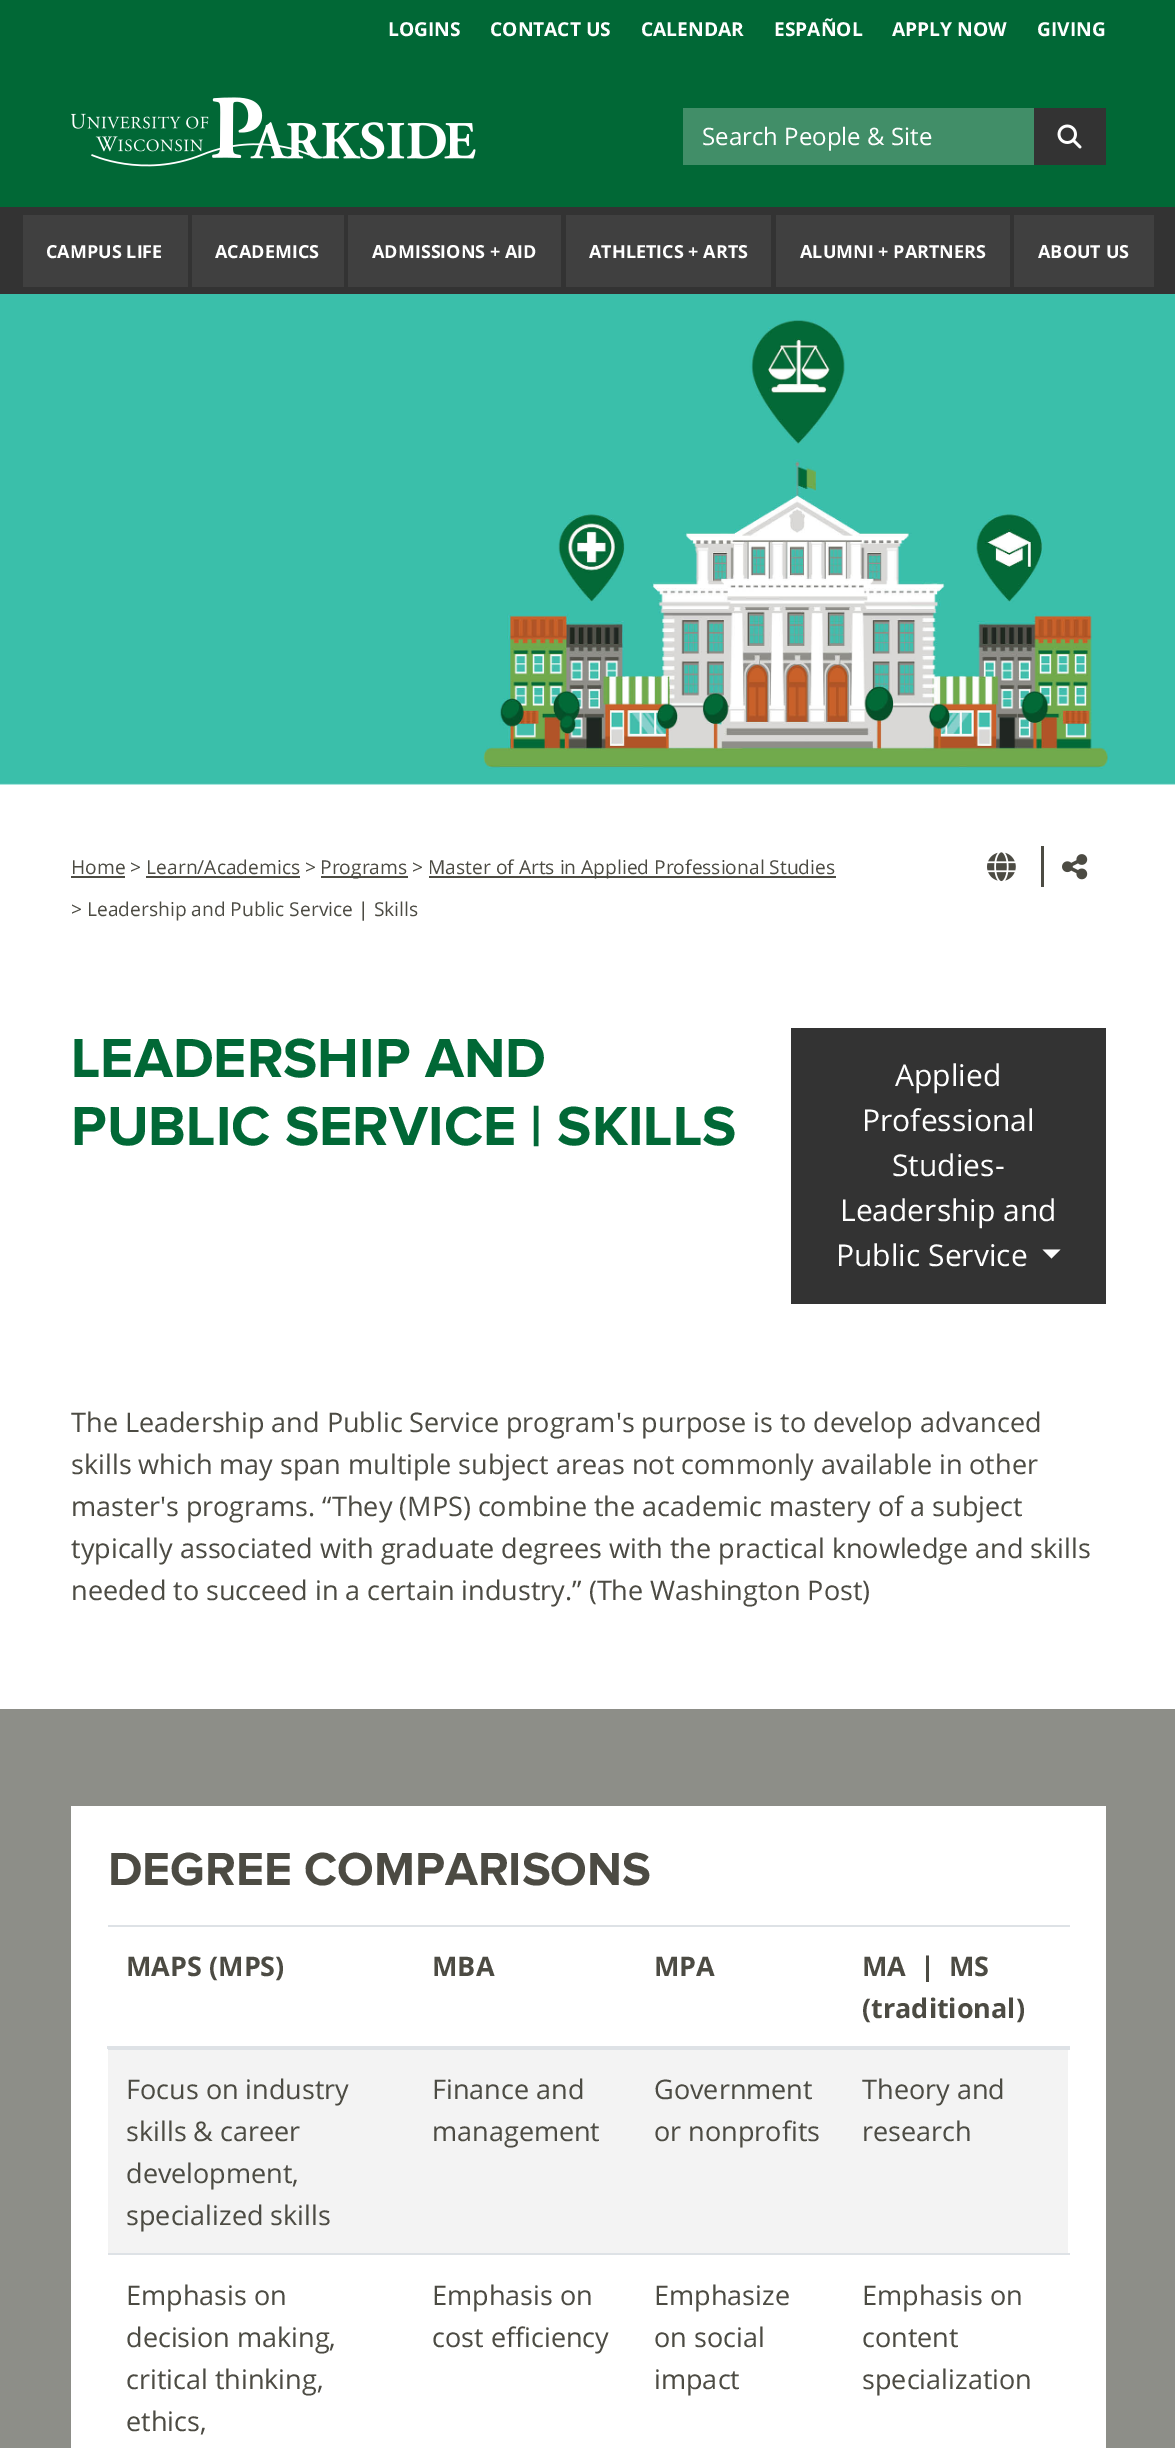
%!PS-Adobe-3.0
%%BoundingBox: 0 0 1175 2448
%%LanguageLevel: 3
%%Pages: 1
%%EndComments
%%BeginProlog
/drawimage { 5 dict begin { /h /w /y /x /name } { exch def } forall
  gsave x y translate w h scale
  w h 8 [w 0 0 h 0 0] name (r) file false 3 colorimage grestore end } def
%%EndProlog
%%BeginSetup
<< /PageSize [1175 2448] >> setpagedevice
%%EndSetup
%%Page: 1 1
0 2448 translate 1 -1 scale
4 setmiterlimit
1 setgray
0 0 1175 2448 rectfill
0.004 0.408 0.212 setrgbcolor
0 0 1175 207 rectfill
(images/1.raw) 71 97 405 70 drawimage
0.255 0.557 0.408 setrgbcolor
683 108 351 57 rectfill
0.2 setgray
1034 108 72 57 rectfill
(images/2.raw) 1057 124 25 25 drawimage
0 207 1175 87 rectfill
0.251 setgray
23 215 165 72 rectfill
192 215 152 72 rectfill
348 215 213 72 rectfill
566 215 205 72 rectfill
776 215 234 72 rectfill
1014 215 140 72 rectfill
(images/3.raw) 0 294 1175 491 drawimage
0.298 0.294 0.263 setrgbcolor
71 876 54 2 rectfill
321 876 87 2 rectfill
429 876 407 2 rectfill
146 876 154 2 rectfill
1041 846 3 41 rectfill
(images/4.raw) 987 852 29 30 drawimage
(images/5.raw) 1062 854 26 26 drawimage
0.2 setgray
791 1028 315 276 rectfill
1 setgray
newpath 1042.5 1249.5 moveto 1060.5 1249.5 lineto 1051.5 1258.5 lineto closepath fill
0.553 0.557 0.533 setrgbcolor
0 1709 1175 739 rectfill
1 setgray
71 1806 1035 642 rectfill
0.871 0.886 0.902 setrgbcolor
108 1925 962 2 rectfill
107 2046 963 3 rectfill
0.953 setgray
108 2050 960 203 rectfill
0.871 0.886 0.902 setrgbcolor
108 2049 962 1 rectfill
108 2253 962 2 rectfill
/OpenSans-Bold [19.2 0 0 -19.2 0 0] selectfont
1 setgray
388 36 moveto (LOGINS) show
490 36 moveto (CONTACT US) show
641 36 moveto (CALENDAR) show
774 36 moveto (ESPAÑOL) show
892 36 moveto (APPLY NOW) show
1037 36 moveto (GIVING) show
/OpenSans-Regular [24 0 0 -24 0 0] selectfont
702 145 moveto (Search People & Site) show
/OpenSans-Bold [18 0 0 -18 0 0] selectfont
46 258 moveto (CAMPUS LIFE) show
215 258 moveto (ACADEMICS) show
372 258 moveto (ADMISSIONS + AID) show
589 258 moveto (ATHLETICS + ARTS) show
800 258 moveto (ALUMNI + PARTNERS) show
1038 258 moveto (ABOUT US) show
/OpenSans-Regular [19.2 0 0 -19.2 0 0] selectfont
0.298 0.294 0.263 setrgbcolor
71 874 moveto (Home > Learn/Academics >) show
320 874 moveto (Programs >) show
428 874 moveto (Master of Arts in Applied Professional Studies) show
71 916 moveto (> Leadership and Public Service | Skills) show
/ProximaNova-Bold [57 0 0 -57 0 0] selectfont
0.004 0.408 0.212 setrgbcolor
71 1077 moveto (LEADERSHIP AND) show
71 1145 moveto (PUBLIC SERVICE | SKILLS) show
/OpenSans-Regular [30 0 0 -30 0 0] selectfont
1 setgray
895 1086 moveto (Applied) show
862 1131 moveto (Professional) show
892 1176 moveto (Studies-) show
840 1221 moveto (Leadership and) show
836 1266 moveto (Public Service) show
/OpenSans-Regular [27 0 0 -27 0 0] selectfont
0.298 0.294 0.263 setrgbcolor
71 1432 moveto (The Leadership and Public Service program's purpose is to develop advanced) show
71 1474 moveto (skills which may span multiple subject areas not commonly available in other) show
71 1516 moveto (master's programs. “They \(MPS\) combine the academic mastery of a subject) show
71 1558 moveto (typically associated with graduate degrees with the practical knowledge and skills) show
71 1600 moveto (needed to succeed in a certain industry.” \(The Washington Post\)) show
/ProximaNova-Bold [48 0 0 -48 0 0] selectfont
108 1885 moveto (DEGREE COMPARISONS) show
/OpenSans-Bold [27 0 0 -27 0 0] selectfont
126 1976 moveto (MAPS \(MPS\)) show
432 1976 moveto (MBA) show
654 1976 moveto (MPA) show
862 1976 moveto (MA  |  MS) show
862 2018 moveto (\(traditional\)) show
/OpenSans-Regular [27 0 0 -27 0 0] selectfont
126 2099 moveto (Focus on industry) show
126 2141 moveto (skills & career) show
126 2183 moveto (development,) show
126 2225 moveto (specialized skills) show
432 2099 moveto (Finance and) show
432 2141 moveto (management) show
654 2099 moveto (Government) show
654 2141 moveto (or nonprofits) show
862 2099 moveto (Theory and) show
862 2141 moveto (research) show
126 2305 moveto (Emphasis on) show
126 2347 moveto (decision making,) show
126 2389 moveto (critical thinking,) show
126 2431 moveto (ethics,) show
432 2305 moveto (Emphasis on) show
432 2347 moveto (cost efficiency) show
654 2305 moveto (Emphasize) show
654 2347 moveto (on social) show
654 2389 moveto (impact) show
862 2305 moveto (Emphasis on) show
862 2347 moveto (content) show
862 2389 moveto (specialization) show
showpage
%%EOF
